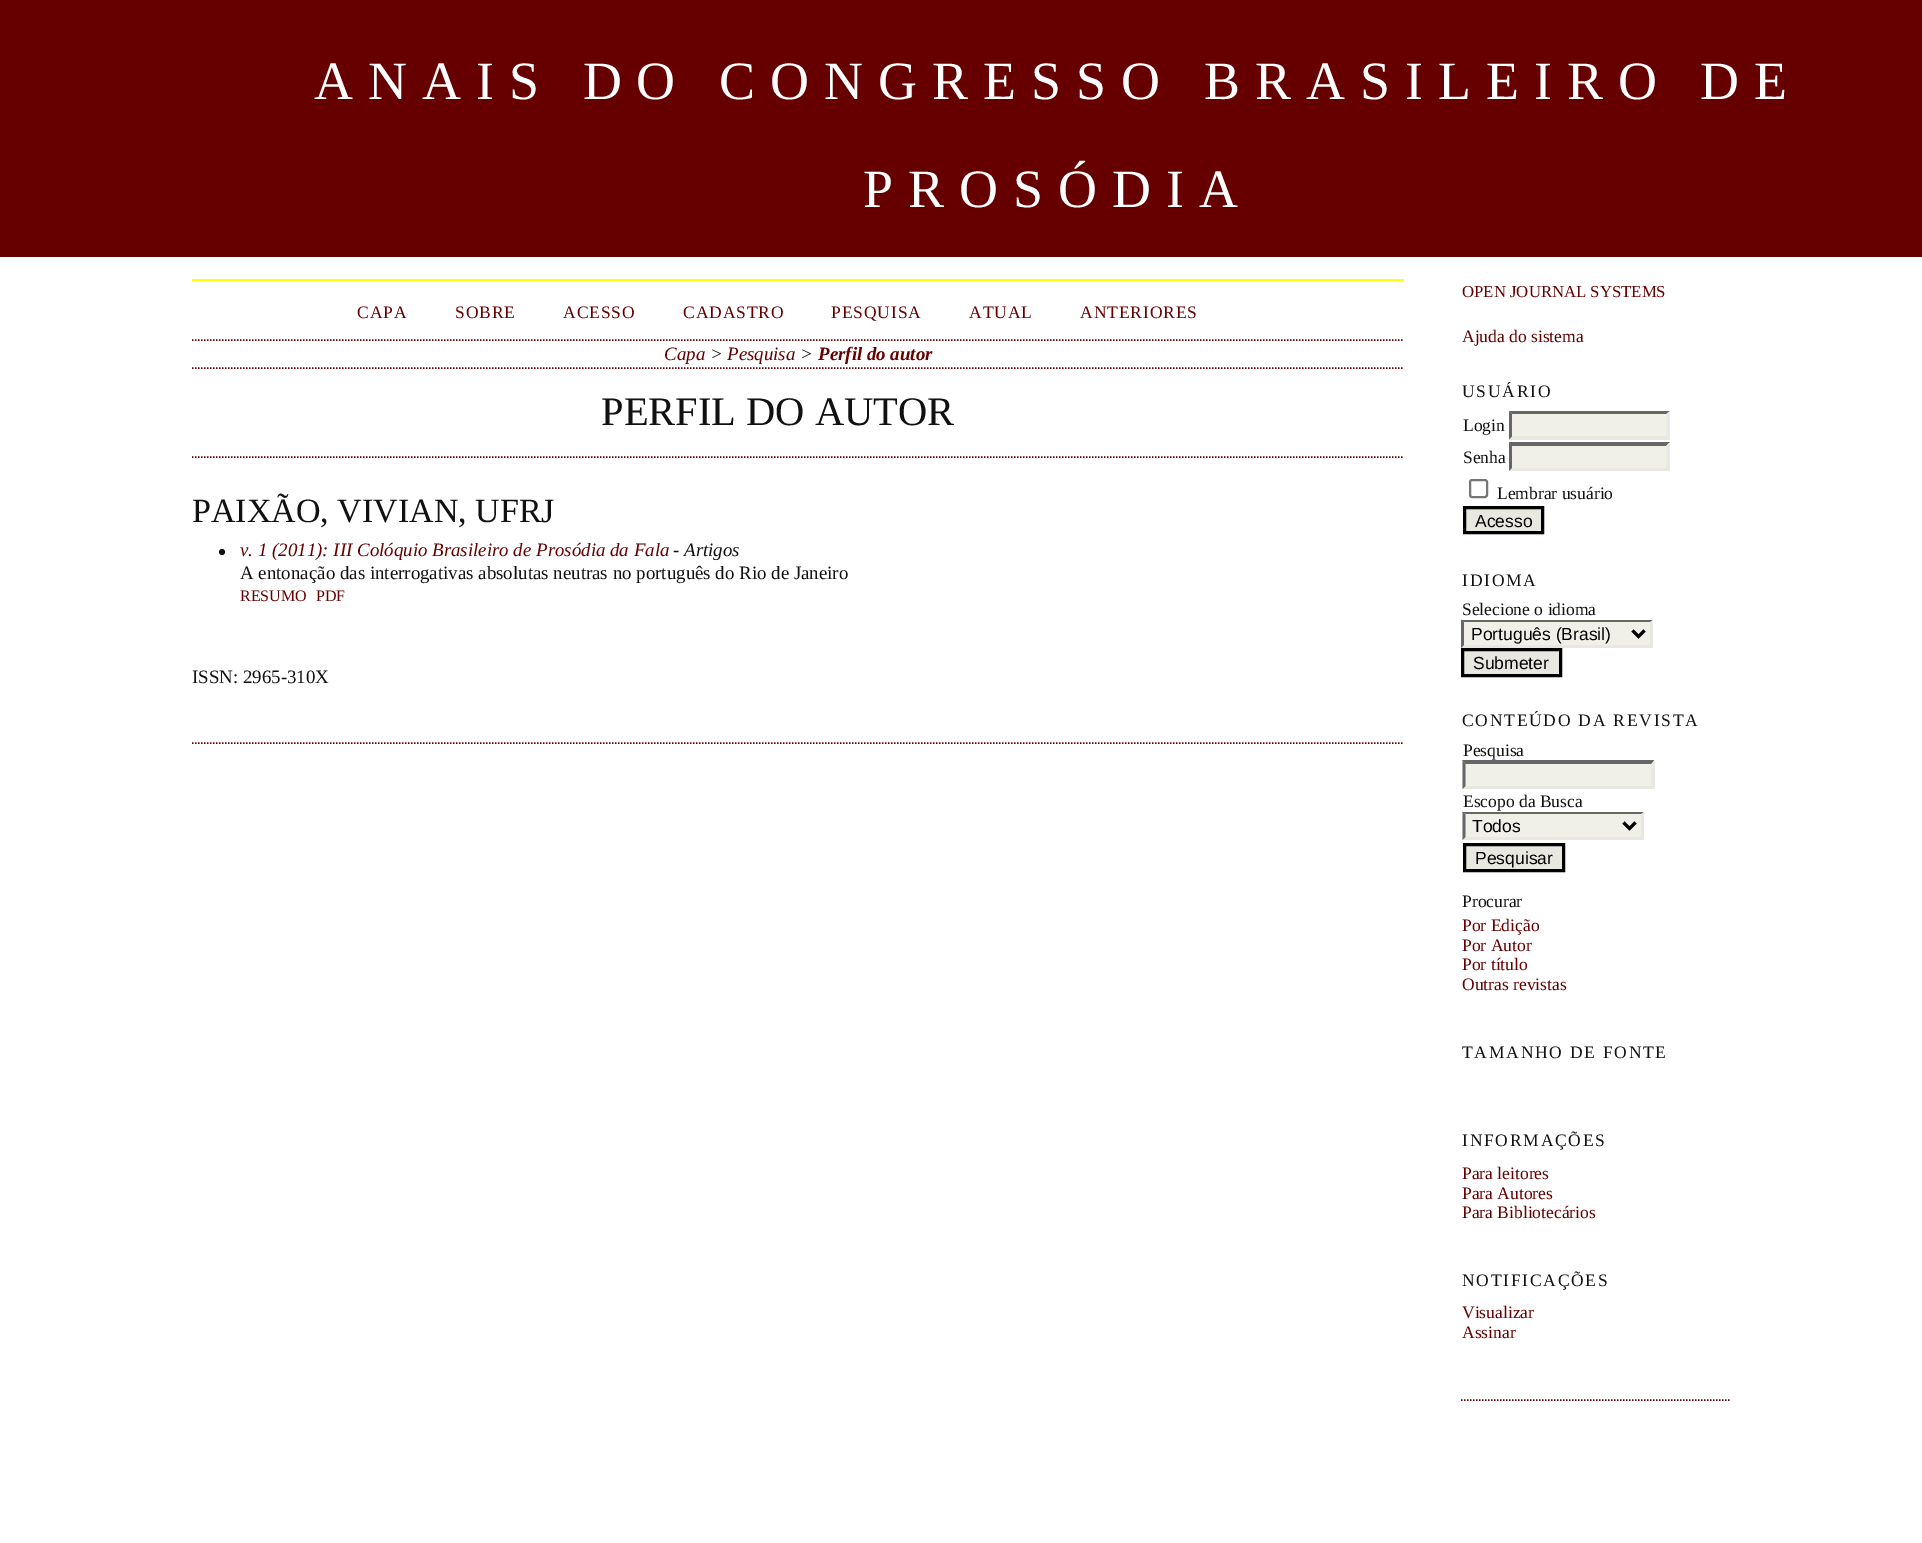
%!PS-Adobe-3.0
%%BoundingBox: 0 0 1922 1543
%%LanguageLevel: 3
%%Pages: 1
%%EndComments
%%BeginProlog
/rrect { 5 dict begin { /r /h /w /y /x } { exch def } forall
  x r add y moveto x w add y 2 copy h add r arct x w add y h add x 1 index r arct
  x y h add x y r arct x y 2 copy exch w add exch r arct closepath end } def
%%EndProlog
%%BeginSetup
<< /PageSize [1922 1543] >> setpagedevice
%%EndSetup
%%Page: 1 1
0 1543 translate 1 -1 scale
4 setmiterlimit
1 setgray
0 0 1922 1543 rectfill
0.4 0 0 setrgbcolor
0 0 1922 257 rectfill
1 1 0 setrgbcolor
192 279 1212 2 rectfill
0.4 0 0 setrgbcolor
1.5 setlinewidth
[1.5 1.5] 0 setdash
newpath 192 743 moveto 1404 743 lineto stroke
newpath 192 340 moveto 1404 340 lineto stroke
newpath 192 368 moveto 1404 368 lineto stroke
newpath 192 457 moveto 1404 457 lineto stroke
0.067 setgray
newpath 222 552 3 0 360 arc closepath fill
0.4 0 0 setrgbcolor
newpath 1461 1400 moveto 1731 1400 lineto stroke
0.941 0.941 0.91 setrgbcolor
1509 411 161 29 rectfill
0.4 setgray
newpath 1509 411 moveto 1670 411 lineto 1666 414 lineto 1512 414 lineto closepath fill
0.91 0.91 0.882 setrgbcolor
newpath 1669.5 411 moveto 1669.5 439.5 lineto 1666.5 436.5 lineto 1666.5 414 lineto closepath fill
newpath 1670 440 moveto 1509 440 lineto 1512 436 lineto 1666 436 lineto closepath fill
0.4 setgray
newpath 1509 439.5 moveto 1509 411 lineto 1512 414 lineto 1512 436.5 lineto closepath fill
0.941 0.941 0.91 setrgbcolor
1509 443 161 28 rectfill
0.4 setgray
newpath 1509 442 moveto 1670 442 lineto 1666 446 lineto 1512 446 lineto closepath fill
0.91 0.91 0.882 setrgbcolor
newpath 1669.5 442.5 moveto 1669.5 471 lineto 1666.5 468 lineto 1666.5 445.5 lineto closepath fill
newpath 1670 471 moveto 1509 471 lineto 1512 468 lineto 1666 468 lineto closepath fill
0.4 setgray
newpath 1509 471 moveto 1509 442.5 lineto 1512 445.5 lineto 1512 468 lineto closepath fill
0.463 setgray
2 setlinewidth
[] 0 setdash
1470 480 17 17 2 rrect stroke
0.91 0.91 0.882 setrgbcolor
newpath 1464.5 507.5 moveto 1542.5 507.5 lineto 1542.5 532.5 lineto 1464.5 532.5 lineto closepath gsave fill grestore
0 setgray
3 setlinewidth
stroke
0.941 0.941 0.91 setrgbcolor
1461 620 192 28 rectfill
0.4 setgray
newpath 1461 620 moveto 1653 620 lineto 1650 622 lineto 1464 622 lineto closepath fill
0.91 0.91 0.882 setrgbcolor
newpath 1653 619.5 moveto 1653 648 lineto 1650 645 lineto 1650 622.5 lineto closepath fill
newpath 1653 648 moveto 1461 648 lineto 1464 645 lineto 1650 645 lineto closepath fill
0.4 setgray
newpath 1461 648 moveto 1461 619.5 lineto 1464 622.5 lineto 1464 645 lineto closepath fill
0 setgray
newpath 1632.5 630.5 moveto 1638.5 636.5 lineto 1644.5 630.5 lineto stroke
0.91 0.91 0.882 setrgbcolor
newpath 1462.5 649.5 moveto 1560.5 649.5 lineto 1560.5 675.5 lineto 1462.5 675.5 lineto closepath gsave fill grestore
0 setgray
stroke
0.941 0.941 0.91 setrgbcolor
1463 761 192 28 rectfill
0.4 setgray
newpath 1462 760 moveto 1654 760 lineto 1652 764 lineto 1466 764 lineto closepath fill
0.91 0.91 0.882 setrgbcolor
newpath 1654.5 760.5 moveto 1654.5 789 lineto 1651.5 786 lineto 1651.5 763.5 lineto closepath fill
newpath 1654 789 moveto 1462 789 lineto 1466 786 lineto 1652 786 lineto closepath fill
0.4 setgray
newpath 1462.5 789 moveto 1462.5 760.5 lineto 1465.5 763.5 lineto 1465.5 786 lineto closepath fill
0.941 0.941 0.91 setrgbcolor
1463 812 181 28 rectfill
0.4 setgray
newpath 1462 812 moveto 1644 812 lineto 1641 814 lineto 1466 814 lineto closepath fill
0.91 0.91 0.882 setrgbcolor
newpath 1644 811.5 moveto 1644 840 lineto 1641 837 lineto 1641 814.5 lineto closepath fill
newpath 1644 840 moveto 1462 840 lineto 1466 837 lineto 1641 837 lineto closepath fill
0.4 setgray
newpath 1462.5 840 moveto 1462.5 811.5 lineto 1465.5 814.5 lineto 1465.5 837 lineto closepath fill
0 setgray
newpath 1623.5 822.5 moveto 1629.5 828.5 lineto 1635.5 822.5 lineto stroke
0.91 0.91 0.882 setrgbcolor
newpath 1464.5 844.5 moveto 1563.5 844.5 lineto 1563.5 870.5 lineto 1464.5 870.5 lineto closepath gsave fill grestore
0 setgray
stroke
/LiberationSerif-Regular [54 0 0 -54 0 0] selectfont
1 setgray
314 99 moveto 15 0 (ANAIS DO CONGRESSO BRASILEIRO DE) ashow
863 207 moveto 15 0 (PROSÓDIA) ashow
/LiberationSerif-Regular [17.5 0 0 -17.5 0 0] selectfont
0.4 0 0 setrgbcolor
357 318 moveto 0.9 0 (CAPA) ashow
455 318 moveto 0.9 0 (SOBRE) ashow
563 318 moveto 0.9 0 (ACESSO) ashow
683 318 moveto 0.9 0 (CADASTRO) ashow
831 318 moveto 0.9 0 (PESQUISA) ashow
969 318 moveto 0.9 0 (ATUAL) ashow
1080 318 moveto 0.9 0 (ANTERIORES) ashow
/LiberationSerif-Italic [18.9 0 0 -18.9 0 0] selectfont
664 360 moveto (Capa) show
0.067 setgray
710 360 moveto (>) show
0.4 0 0 setrgbcolor
727 360 moveto (Pesquisa) show
0.067 setgray
800 360 moveto (>) show
/LiberationSerif-BoldItalic [18.9 0 0 -18.9 0 0] selectfont
0.4 0 0 setrgbcolor
818 360 moveto (Perfil do autor) show
/LiberationSerif-Regular [40.5 0 0 -40.5 0 0] selectfont
0.067 setgray
601 425 moveto (PERFIL DO AUTOR) show
/LiberationSerif-Regular [34 0 0 -34 0 0] selectfont
192 522 moveto (PAIXÃO, VIVIAN, UFRJ) show
/LiberationSerif-Italic [18.9 0 0 -18.9 0 0] selectfont
0.4 0 0 setrgbcolor
240 556 moveto (v. 1 \(2011\): III Colóquio Brasileiro de Prosódia da Fala) show
0.067 setgray
673 556 moveto (- Artigos) show
/LiberationSerif-Regular [18.9 0 0 -18.9 0 0] selectfont
240 579 moveto (A entonação das interrogativas absolutas neutras no português do Rio de Janeiro) show
/LiberationSerif-Regular [16 0 0 -16 0 0] selectfont
0.4 0 0 setrgbcolor
240 601 moveto (RESUMO) show
316 601 moveto (PDF) show
/LiberationSerif-Regular [18.9 0 0 -18.9 0 0] selectfont
0.067 setgray
192 683 moveto (ISSN: 2965-310X) show
/LiberationSerif-Regular [16.75 0 0 -16.75 0 0] selectfont
0.4 0 0 setrgbcolor
1462 297 moveto (OPEN JOURNAL SYSTEMS) show
/LiberationSerif-Regular [17.5 0 0 -17.5 0 0] selectfont
1462 342 moveto (Ajuda do sistema) show
0.067 setgray
1462 397 moveto 1.75 0 (USUÁRIO) ashow
1463 431 moveto (Login) show
1463 463 moveto (Senha) show
1497 499 moveto (Lembrar usuário) show
/LiberationSans-Regular [17.5 0 0 -17.5 0 0] selectfont
0 setgray
1475 527 moveto (Acesso) show
/LiberationSerif-Regular [17.5 0 0 -17.5 0 0] selectfont
0.067 setgray
1462 586 moveto 1.75 0 (IDIOMA) ashow
1462 615 moveto (Selecione o idioma) show
/LiberationSans-Regular [17.5 0 0 -17.5 0 0] selectfont
0 setgray
1471 640 moveto (Português \(Brasil\)) show
1473 669 moveto (Submeter) show
/LiberationSerif-Regular [17.5 0 0 -17.5 0 0] selectfont
0.067 setgray
1462 726 moveto 1.75 0 (CONTEÚDO DA REVISTA) ashow
1463 756 moveto (Pesquisa) show
1463 807 moveto (Escopo da Busca) show
/LiberationSans-Regular [17.5 0 0 -17.5 0 0] selectfont
0 setgray
1472 832 moveto (Todos) show
1475 864 moveto (Pesquisar) show
/LiberationSerif-Regular [17.5 0 0 -17.5 0 0] selectfont
0.067 setgray
1462 907 moveto (Procurar) show
0.4 0 0 setrgbcolor
1462 931 moveto (Por Edição) show
1462 951 moveto (Por Autor) show
1462 970 moveto (Por título) show
1462 990 moveto (Outras revistas) show
0.067 setgray
1462 1058 moveto 1.75 0 (TAMANHO DE FONTE) ashow
1462 1146 moveto 1.75 0 (INFORMAÇÕES) ashow
0.4 0 0 setrgbcolor
1462 1179 moveto (Para leitores) show
1462 1199 moveto (Para Autores) show
1462 1218 moveto (Para Bibliotecários) show
0.067 setgray
1462 1286 moveto 1.75 0 (NOTIFICAÇÕES) ashow
0.4 0 0 setrgbcolor
1462 1318 moveto (Visualizar) show
1462 1338 moveto (Assinar) show
showpage
%%EOF
